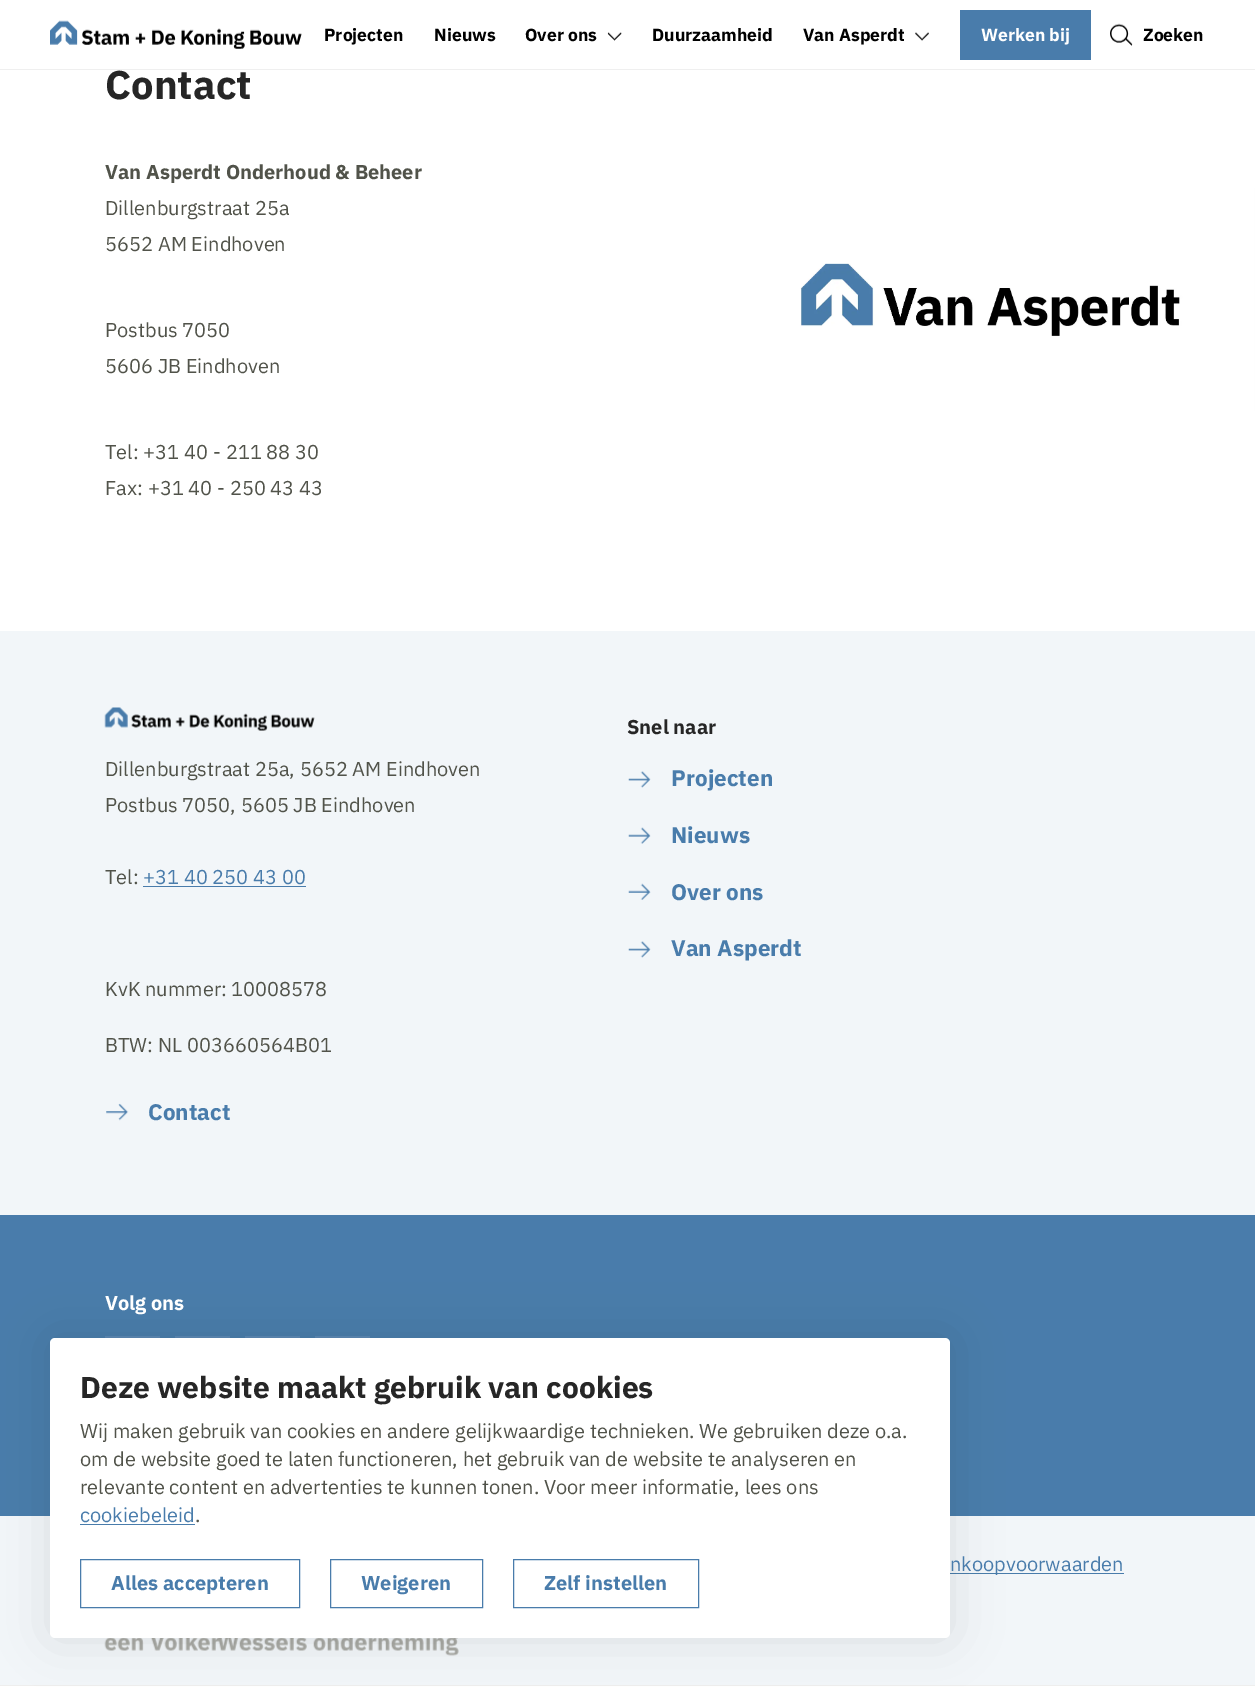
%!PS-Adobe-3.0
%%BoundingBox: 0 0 1255 1687
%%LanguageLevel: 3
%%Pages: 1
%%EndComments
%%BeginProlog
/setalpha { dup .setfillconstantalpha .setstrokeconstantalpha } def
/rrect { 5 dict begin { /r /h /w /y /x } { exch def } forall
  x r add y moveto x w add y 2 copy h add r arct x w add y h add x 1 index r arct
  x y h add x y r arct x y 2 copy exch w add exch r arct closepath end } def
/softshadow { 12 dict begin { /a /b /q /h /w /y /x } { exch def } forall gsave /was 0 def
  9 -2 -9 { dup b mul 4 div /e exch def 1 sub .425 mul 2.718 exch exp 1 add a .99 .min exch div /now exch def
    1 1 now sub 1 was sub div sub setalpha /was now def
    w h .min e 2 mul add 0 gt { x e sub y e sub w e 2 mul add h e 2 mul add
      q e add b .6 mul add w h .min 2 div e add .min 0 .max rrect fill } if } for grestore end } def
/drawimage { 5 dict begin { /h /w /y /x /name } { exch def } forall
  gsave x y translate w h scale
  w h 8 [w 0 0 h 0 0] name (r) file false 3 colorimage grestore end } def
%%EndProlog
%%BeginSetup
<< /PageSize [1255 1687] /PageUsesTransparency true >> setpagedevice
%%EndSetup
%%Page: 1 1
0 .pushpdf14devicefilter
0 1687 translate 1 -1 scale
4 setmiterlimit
1 setgray
0 0 1255 1687 rectfill
0.937 setgray
0 69 1255 1 rectfill
(images/1.raw) 50 20 252 29 drawimage
(images/2.raw) 607 32 15 9 drawimage
(images/3.raw) 915 32 14 9 drawimage
0.286 0.486 0.671 setrgbcolor
960 10 131 50 rectfill
(images/4.raw) 1110 23 23 23 drawimage
(images/5.raw) 733 188 522 223 drawimage
0.933 0.933 0.929 setrgbcolor
0 1685 1255 1 rectfill
0.949 0.965 0.976 setrgbcolor
0 631 1255 584 rectfill
(images/6.raw) 104 707 211 24 drawimage
0.286 0.486 0.671 setrgbcolor
143 886 163 1 rectfill
(images/7.raw) 106 1103 23 18 drawimage
(images/8.raw) 628 771 23 17 drawimage
(images/9.raw) 628 827 23 17 drawimage
(images/10.raw) 628 883 23 17 drawimage
(images/8.raw) 628 941 23 17 drawimage
0 1215 1255 301 rectfill
0.357 0.537 0.702 setrgbcolor
105 1336 55 2 rectfill
175 1336 55 2 rectfill
245 1336 55 2 rectfill
315 1336 55 2 rectfill
0.949 0.965 0.976 setrgbcolor
0 1516 1255 169 rectfill
0.286 0.486 0.671 setrgbcolor
950 1573 174 1 rectfill
(images/11.raw) 104 1638 355 18 drawimage
0 setgray
50 1338 900 300 5 25 0.1 softshadow
1 setgray
50 1338 900 300 5 rrect fill
0.286 0.486 0.671 setrgbcolor
80 1524 115 1 rectfill
80.5 1559.5 219 48 rectstroke
330.5 1559.5 152 48 rectstroke
513.5 1559.5 185 48 rectstroke
/IBMPlexSans-Bold [17.5 0 0 -17.5 0 0] selectfont
0 setgray
324 41 moveto (Projecten) show
434 41 moveto (Nieuws) show
525 41 moveto (Over ons) show
652 41 moveto (Duurzaamheid) show
803 41 moveto (Van Asperdt) show
1 setgray
981 41 moveto (Werken bij) show
0 setgray
1143 41 moveto (Zoeken) show
/IBMPlexSans-Bold [40 0 0 -40 0 0] selectfont
0.149 setgray
105 99 moveto (Contact) show
/IBMPlexSans-Bold [20 0 0 -20 0 0] selectfont
0.318 0.325 0.29 setrgbcolor
105 179 moveto (Van Asperdt Onderhoud & Beheer) show
/IBMPlexSans-Regular [20 0 0 -20 0 0] selectfont
105 215 moveto (Dillenburgstraat 25a) show
105 251 moveto (5652 AM Eindhoven) show
105 337 moveto (Postbus 7050) show
105 373 moveto (5606 JB Eindhoven) show
105 459 moveto (Tel: +31 40 - 211 88 30) show
105 495 moveto (Fax: +31 40 - 250 43 43) show
105 776 moveto (Dillenburgstraat 25a, 5652 AM Eindhoven) show
105 812 moveto (Postbus 7050, 5605 JB Eindhoven) show
105 884 moveto (Tel:) show
0.286 0.486 0.671 setrgbcolor
143 884 moveto (+31 40 250 43 00) show
0.318 0.325 0.29 setrgbcolor
105 996 moveto (KvK nummer: 10008578) show
105 1052 moveto (BTW: NL 003660564B01) show
/IBMPlexSans-Bold [22.5 0 0 -22.5 0 0] selectfont
0.286 0.486 0.671 setrgbcolor
148 1120 moveto (Contact) show
/IBMPlexSans-Bold [20 0 0 -20 0 0] selectfont
0.149 setgray
627 734 moveto (Snel naar) show
/IBMPlexSans-Bold [22.5 0 0 -22.5 0 0] selectfont
0.286 0.486 0.671 setrgbcolor
671 786 moveto (Projecten) show
671 843 moveto (Nieuws) show
671 900 moveto (Over ons) show
671 956 moveto (Van Asperdt) show
/IBMPlexSans-Bold [20 0 0 -20 0 0] selectfont
1 setgray
105 1310 moveto (Volg ons) show
/IBMPlexSans-Regular [20 0 0 -20 0 0] selectfont
0.286 0.486 0.671 setrgbcolor
950 1571 moveto (nkoopvoorwaarden) show
/IBMPlexSans-Bold [30 0 0 -30 0 0] selectfont
0.149 setgray
80 1398 moveto (Deze website maakt gebruik van cookies) show
/IBMPlexSans-Regular [20 0 0 -20 0 0] selectfont
0.318 0.325 0.29 setrgbcolor
80 1438 moveto (Wij maken gebruik van cookies en andere gelijkwaardige technieken. We gebruiken deze o.a.) show
80 1466 moveto (om de website goed te laten functioneren, het gebruik van de website te analyseren en) show
80 1494 moveto (relevante content en advertenties te kunnen tonen. Voor meer informatie, lees ons) show
0.286 0.486 0.671 setrgbcolor
80 1522 moveto (cookiebeleid) show
0.318 0.325 0.29 setrgbcolor
195 1522 moveto (.) show
/IBMPlexSans-Bold [20 0 0 -20 0 0] selectfont
0.286 0.486 0.671 setrgbcolor
111 1590 moveto (Alles accepteren) show
361 1590 moveto (Weigeren) show
544 1590 moveto (Zelf instellen) show
.poppdf14devicefilter showpage
%%EOF
